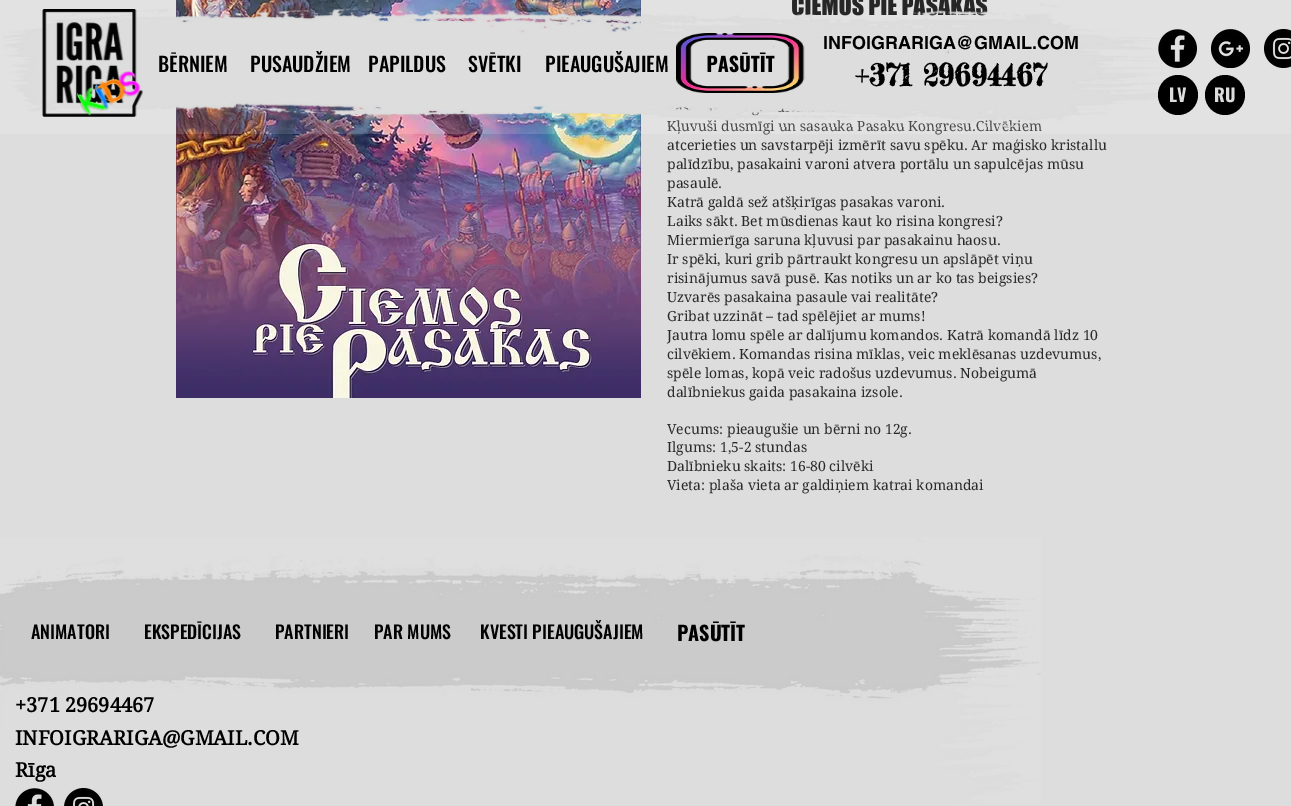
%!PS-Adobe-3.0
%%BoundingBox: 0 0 1291 806
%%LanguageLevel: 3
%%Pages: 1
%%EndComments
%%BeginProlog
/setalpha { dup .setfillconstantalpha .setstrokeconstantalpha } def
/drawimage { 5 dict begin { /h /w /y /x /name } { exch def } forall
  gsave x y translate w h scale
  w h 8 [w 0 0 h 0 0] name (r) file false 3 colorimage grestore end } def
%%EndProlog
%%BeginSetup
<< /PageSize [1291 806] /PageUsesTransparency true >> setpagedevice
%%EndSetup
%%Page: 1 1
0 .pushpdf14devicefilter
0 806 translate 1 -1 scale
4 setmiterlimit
0.867 setgray
0 0 1291 806 rectfill
(images/1.raw) 176 0 465 398 drawimage
(images/2.raw) 0 537 1041 266 drawimage
(images/3.raw) 15 788 39 18 drawimage
(images/4.raw) 64 788 39 18 drawimage
/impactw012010-Regular [24 0 0 -24 0 0] selectfont
0 setgray
791 15 moveto (CIEMOS PIE PASAKAS) show
/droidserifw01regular-Regular [14 0 0 -14 0 0] selectfont
0.165 setgray
667 131 moveto (Kļuvuši dusmīgi un sasauka Pasaku Kongresu.Cilvēkiem) show
667 150 moveto (atcerieties un savstarpēji izmērīt savu spēku. Ar maģisko kristallu) show
667 169 moveto (palīdzību, pasakaini varoni atvera portālu un sapulcējas mūsu) show
667 188 moveto (pasaulē.) show
667 207 moveto (Katrā galdā sež atšķirīgas pasakas varoni.) show
667 226 moveto (Laiks sākt. Bet mūsdienas kaut ko risina kongresi?) show
667 245 moveto (Miermierīga saruna kļuvusi par pasakainu haosu.) show
667 264 moveto (Ir spēki, kuri grib pārtraukt kongresu un apslāpēt viņu) show
667 283 moveto (risinājumus savā pusē. Kas notiks un ar ko tas beigsies?) show
667 302 moveto (Uzvarēs pasakaina pasaule vai realitāte?) show
667 321 moveto (Gribat uzzināt – tad spēlējiet ar mums!) show
667 340 moveto (Jautra lomu spēle ar dalījumu komandos. Katrā komandā līdz 10) show
667 359 moveto (cilvēkiem. Komandas risina mīklas, veic meklēsanas uzdevumus,) show
667 378 moveto (spēle lomas, kopā veic radošus uzdevumus. Nobeigumā) show
667 397 moveto (dalībniekus gaida pasakaina izsole.) show
667 434 moveto (Vecums: pieaugušie un bērni no 12g.) show
667 452 moveto (Ilgums: 1,5-2 stundas) show
667 471 moveto (Dalībnieku skaits: 16-80 cilvēki) show
667 490 moveto (Vieta: plaša vieta ar galdiņiem katrai komandai) show
/Oswald-Medium [18 0 0 -18 0 0] selectfont
0 setgray
31 639 moveto (ANIMATORI) show
144 639 moveto (EKSPEDĪCIJAS) show
275 639 moveto (PARTNIERI) show
374 639 moveto (PAR MUMS) show
480 639 moveto (KVESTI PIEAUGUŠAJIEM) show
/Oswald-Bold [20 0 0 -20 0 0] selectfont
677 641 moveto (PASŪTĪT) show
/droidserifw01regular-Bold [20 0 0 -20 0 0] selectfont
15 712 moveto (+371 29694467) show
15 745 moveto (INFOIGRARIGA@GMAIL.COM) show
15 777 moveto (Rīga) show
0.15 setalpha
1 setgray
0 0 1291 134 rectfill
1 setalpha
(images/5.raw) 3 0 1164 127 drawimage
(images/6.raw) 42 9 101 108 drawimage
/helvetica-Bold [18 0 0 -18 0 0] selectfont
0 setgray
823 49 moveto (INFOIGRARIGA@GMAIL.COM) show
(images/8.raw) 1158 29 39 39 drawimage
(images/9.raw) 1211 29 39 39 drawimage
(images/10.raw) 1264 29 27 39 drawimage
/Oswald-Medium [20 0 0 -20 0 0] selectfont
158 72 moveto (BĒRNIEM) show
250 72 moveto (PUSAUDŽIEM) show
368 72 moveto (PAPILDUS) show
468 72 moveto (SVĒTKI) show
545 72 moveto (PIEAUGUŠAJIEM) show
/Oswald-Bold [20 0 0 -20 0 0] selectfont
706 72 moveto (PASŪTĪT) show
(images/7.raw) 676 33 129 60 drawimage
/FrederickatheGreat-Bold [30 0 0 -30 0 0] selectfont
855 86 moveto (+371 29694467) show
newpath 1178 95 20 0 360 arc closepath fill
/Oswald-Bold [18 0 0 -18 0 0] selectfont
0.867 setgray
1169 102 moveto (LV) show
0 setgray
newpath 1225 95 20 0 360 arc closepath fill
0.867 setgray
1214 102 moveto (RU) show
.poppdf14devicefilter showpage
%%EOF
